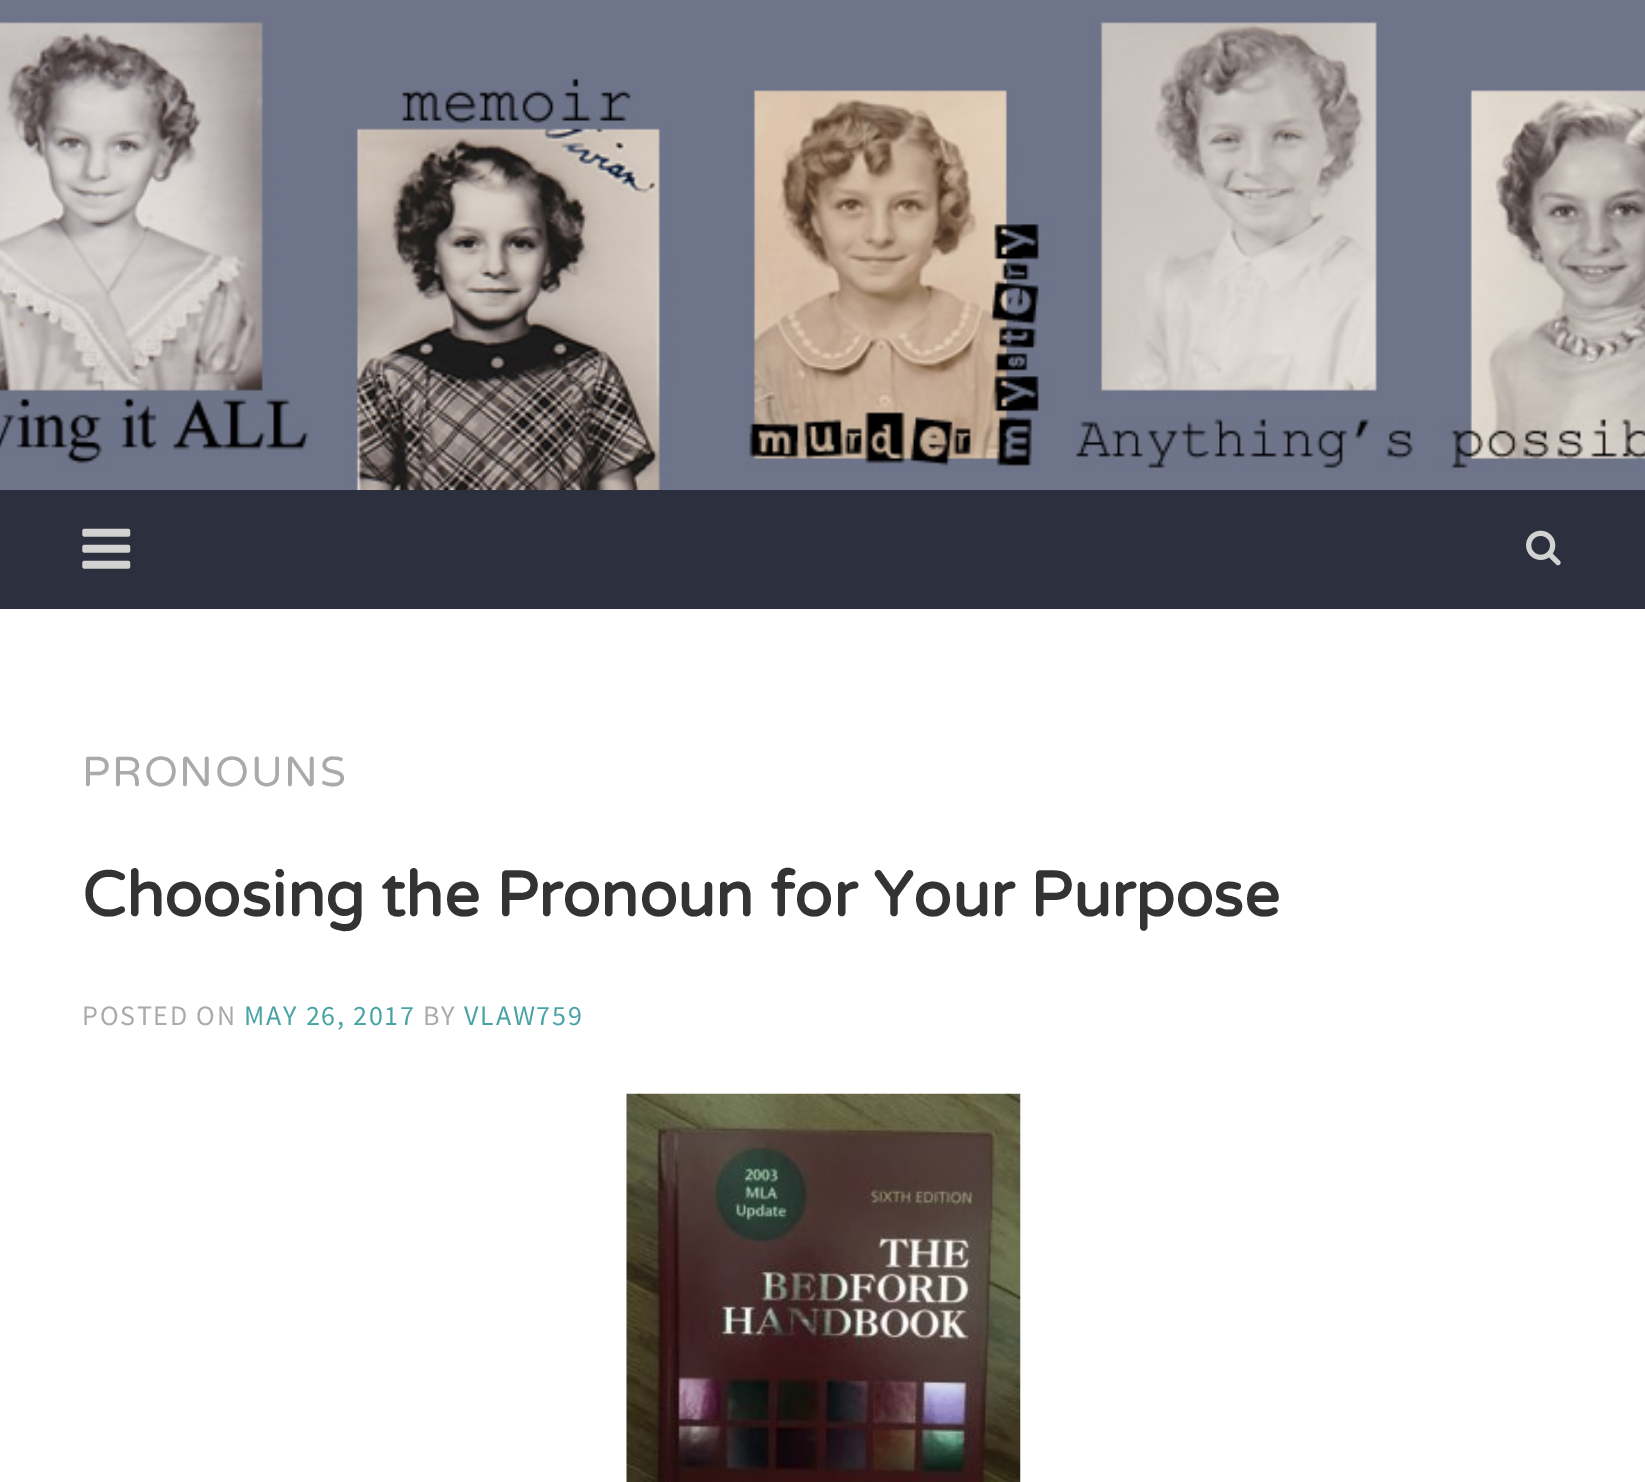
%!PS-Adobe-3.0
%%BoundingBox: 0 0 1645 1482
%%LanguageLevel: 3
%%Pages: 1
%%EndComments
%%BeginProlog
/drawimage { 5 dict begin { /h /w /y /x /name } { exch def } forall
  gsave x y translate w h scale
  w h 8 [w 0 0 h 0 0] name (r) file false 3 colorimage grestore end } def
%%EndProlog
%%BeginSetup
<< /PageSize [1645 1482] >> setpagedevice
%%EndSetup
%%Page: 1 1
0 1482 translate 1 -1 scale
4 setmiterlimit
1 setgray
0 0 1645 1482 rectfill
0.169 0.184 0.243 setrgbcolor
0 490 1645 119 rectfill
(images/1.raw) 0 0 1645 490 drawimage
(images/2.raw) 82 528 49 41 drawimage
(images/3.raw) 1526 530 35 36 drawimage
(images/4.raw) 626 1093 395 389 drawimage
/VarelaRound-Regular [42 0 0 -42 0 0] selectfont
0.667 setgray
82 786 moveto 1.75 0 (PRONOUNS) ashow
/VarelaRound-Bold [63 0 0 -63 0 0] selectfont
0.2 setgray
82 916 moveto (Choosing the Pronoun for Your Purpose) show
/SourceSansPro-Regular [28 0 0 -28 0 0] selectfont
0.667 setgray
82 1025 moveto 1.75 0 (POSTED ON) ashow
0.282 0.639 0.651 setrgbcolor
244 1025 moveto 1.75 0 (MAY 26, 2017) ashow
0.667 setgray
423 1025 moveto 1.75 0 (BY) ashow
0.282 0.639 0.651 setrgbcolor
464 1025 moveto 1.75 0 (VLAW759) ashow
showpage
%%EOF
